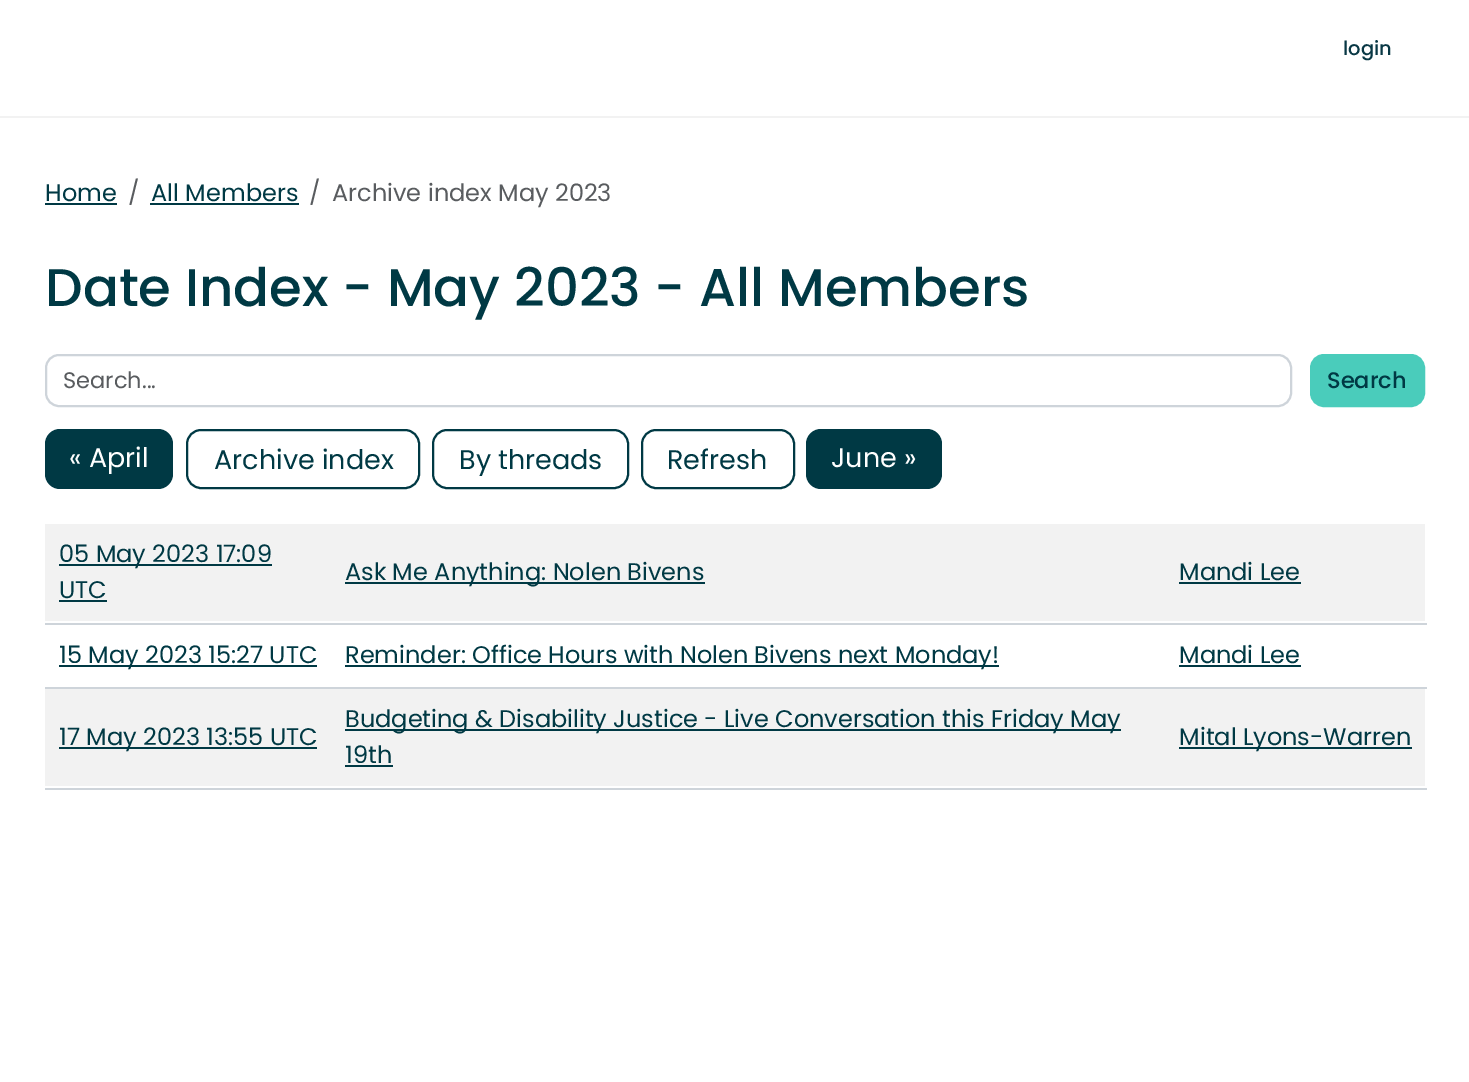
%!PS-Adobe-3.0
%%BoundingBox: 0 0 1469 1082
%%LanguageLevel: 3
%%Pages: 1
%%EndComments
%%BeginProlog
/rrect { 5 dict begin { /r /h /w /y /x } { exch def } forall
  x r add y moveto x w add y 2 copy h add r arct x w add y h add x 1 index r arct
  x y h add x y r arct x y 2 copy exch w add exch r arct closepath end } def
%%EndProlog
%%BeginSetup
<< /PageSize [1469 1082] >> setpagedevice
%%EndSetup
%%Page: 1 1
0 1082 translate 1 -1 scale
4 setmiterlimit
1 setgray
0 0 1469 1082 rectfill
0.949 setgray
0 116 1469 2 rectfill
0 0.224 0.267 setrgbcolor
45 203 72 2 rectfill
150 203 149 2 rectfill
0.808 0.831 0.855 setrgbcolor
2 setlinewidth
46 355 1245 51 13 rrect stroke
0.29 0.8 0.733 setrgbcolor
1311 355 113 51 13 rrect gsave fill grestore
stroke
0 0.224 0.267 setrgbcolor
45 429 128 60 15 rrect fill
187 430 232 58 14 rrect stroke
433 430 195 58 14 rrect stroke
642 430 152 58 14 rrect stroke
806 429 136 60 15 rrect fill
0.949 setgray
45 524 1380 97 rectfill
0 0.224 0.267 setrgbcolor
59 564 213 2 rectfill
59 600 48 2 rectfill
345 582 360 2 rectfill
0.808 0.831 0.855 setrgbcolor
45 623 1382 2 rectfill
0 0.224 0.267 setrgbcolor
1179 582 122 2 rectfill
59 665 258 2 rectfill
345 665 654 2 rectfill
0.808 0.831 0.855 setrgbcolor
45 687 1382 2 rectfill
0 0.224 0.267 setrgbcolor
1179 665 122 2 rectfill
0.949 setgray
45 689 1380 97 rectfill
0 0.224 0.267 setrgbcolor
59 747 258 2 rectfill
345 729 776 2 rectfill
345 765 48 2 rectfill
0.808 0.831 0.855 setrgbcolor
45 788 1382 2 rectfill
0 0.224 0.267 setrgbcolor
1179 747 233 2 rectfill
/Poppins-Medium [19.5 0 0 -19.5 0 0] selectfont
0.035 0.22 0.271 setrgbcolor
1343 55 moveto (login) show
/Poppins-Regular [24 0 0 -24 0 0] selectfont
0 0.224 0.267 setrgbcolor
45 201 moveto (Home) show
0.349 0.361 0.373 setrgbcolor
128 201 moveto (/) show
0 0.224 0.267 setrgbcolor
151 201 moveto (All Members) show
0.349 0.361 0.373 setrgbcolor
309 201 moveto (/) show
332 201 moveto (Archive index May 2023) show
/Poppins-Medium [53 0 0 -53 0 0] selectfont
0 0.224 0.267 setrgbcolor
45 306 moveto (Date Index - May 2023 - All Members) show
/Poppins-Regular [22.5 0 0 -22.5 0 0] selectfont
0.349 0.361 0.373 setrgbcolor
63 388 moveto (Search...) show
/Poppins-Medium [22.5 0 0 -22.5 0 0] selectfont
0 0.224 0.267 setrgbcolor
1327 388 moveto (Search) show
/Poppins-Regular [27 0 0 -27 0 0] selectfont
1 setgray
69 467 moveto (« April) show
0 0.224 0.267 setrgbcolor
214 469 moveto (Archive index) show
459 469 moveto (By threads) show
667 469 moveto (Refresh) show
1 setgray
831 467 moveto (June ») show
/Poppins-Regular [24 0 0 -24 0 0] selectfont
0 0.224 0.267 setrgbcolor
59 562 moveto (05 May 2023 17:09) show
59 598 moveto (UTC) show
345 580 moveto (Ask Me Anything: Nolen Bivens) show
1179 580 moveto (Mandi Lee) show
59 663 moveto (15 May 2023 15:27 UTC) show
345 663 moveto (Reminder: Office Hours with Nolen Bivens next Monday!) show
1179 663 moveto (Mandi Lee) show
59 745 moveto (17 May 2023 13:55 UTC) show
345 727 moveto (Budgeting & Disability Justice - Live Conversation this Friday May) show
345 763 moveto (19th) show
1179 745 moveto (Mital Lyons-Warren) show
showpage
%%EOF
